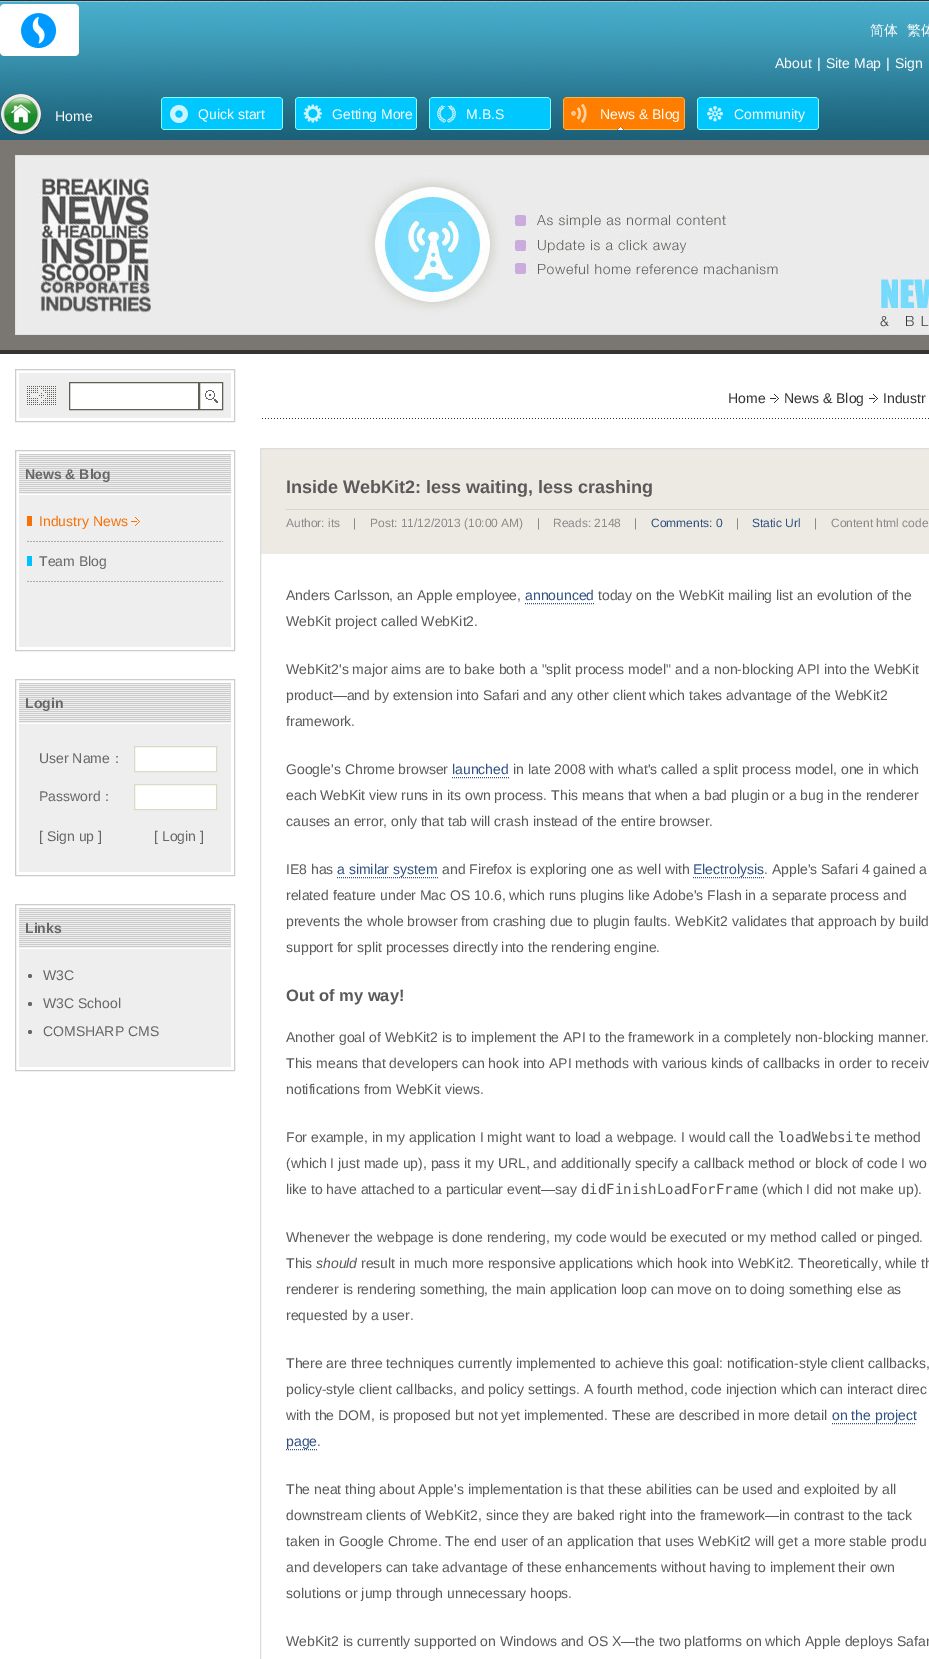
%!PS-Adobe-3.0
%%BoundingBox: 0 0 929 1659
%%LanguageLevel: 3
%%Pages: 1
%%EndComments
%%BeginProlog
/drawimage { 5 dict begin { /h /w /y /x /name } { exch def } forall
  gsave x y translate w h scale
  w h 8 [w 0 0 h 0 0] name (r) file false 3 colorimage grestore end } def
%%EndProlog
%%BeginSetup
<< /PageSize [929 1659] >> setpagedevice
%%EndSetup
%%Page: 1 1
0 1659 translate 1 -1 scale
4 setmiterlimit
1 setgray
0 0 929 1659 rectfill
(images/1.raw) 0 0 929 354 drawimage
(images/2.raw) 0 4 79 52 drawimage
(images/3.raw) 1 94 40 40 drawimage
(images/4.raw) 161 97 122 33 drawimage
(images/5.raw) 295 97 122 33 drawimage
(images/6.raw) 429 97 122 33 drawimage
(images/7.raw) 563 97 122 33 drawimage
(images/8.raw) 697 97 122 33 drawimage
(images/9.raw) 0 140 929 210 drawimage
0.8 setgray
15.5 369.5 219 52 rectstroke
0.933 setgray
19 373 212 45 rectfill
(images/10.raw) 27 386 29 19 drawimage
1 setgray
newpath 69.5 382.5 moveto 198.5 382.5 lineto 198.5 409.5 lineto 69.5 409.5 lineto closepath gsave fill grestore
0.38 0.369 0.333 setrgbcolor
stroke
1 setgray
200 383 22 26 rectfill
(images/11.raw) 205 390 13 13 drawimage
0.38 0.369 0.333 setrgbcolor
199.5 382.5 23 27 rectstroke
0.8 setgray
15.5 450.5 219 200 rectstroke
0.933 setgray
19 493 212 1 rectfill
(images/12.raw) 19 454 212 39 drawimage
19 495 212 152 rectfill
(images/13.raw) 27 541 196 1 drawimage
0.965 0.443 0.031 setrgbcolor
27 516 5 10 rectfill
(images/14.raw) 131 517 9 9 drawimage
(images/13.raw) 27 581 196 1 drawimage
0 0.753 1 setrgbcolor
27 556 5 10 rectfill
0.8 setgray
15.5 679.5 219 196 rectstroke
0.933 setgray
19 722 212 1 rectfill
(images/12.raw) 19 683 212 39 drawimage
19 724 212 148 rectfill
1 setgray
newpath 134.5 746.5 moveto 216.5 746.5 lineto 216.5 771.5 lineto 134.5 771.5 lineto closepath gsave fill grestore
0.835 0.871 0.765 setrgbcolor
stroke
1 setgray
newpath 134.5 784.5 moveto 216.5 784.5 lineto 216.5 809.5 lineto 134.5 809.5 lineto closepath gsave fill grestore
0.835 0.871 0.765 setrgbcolor
stroke
0.8 setgray
15.5 904.5 219 166 rectstroke
0.933 setgray
19 947 212 1 rectfill
(images/12.raw) 19 908 212 39 drawimage
19 949 212 118 rectfill
0.404 setgray
newpath 30 976 2 0 360 arc closepath fill
newpath 30 1004 2 0 360 arc closepath fill
newpath 30 1032 2 0 360 arc closepath fill
(images/15.raw) 770 394 9 9 drawimage
(images/15.raw) 869 394 9 9 drawimage
(images/16.raw) 262 418 667 1 drawimage
0.929 0.918 0.89 setrgbcolor
261 449 668 105 rectfill
0.867 setgray
260.5 448.5 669 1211 rectstroke
0.831 setgray
286 509 643 1 rectfill
0.188 0.314 0.502 setrgbcolor
[1 1] 0 setdash
newpath 525 603.5 moveto 594 603.5 lineto stroke
newpath 452 777.5 moveto 509 777.5 lineto stroke
newpath 337 877.5 moveto 438 877.5 lineto stroke
newpath 693 877.5 moveto 764 877.5 lineto stroke
newpath 832 1423.5 moveto 916 1423.5 lineto stroke
newpath 286 1449.5 moveto 317 1449.5 lineto stroke
/WenQuanYiZenHei-Medium [14 0 0 -14 0 0] selectfont
1 setgray
870 35 moveto (简体) show
907 35 moveto (繁体) show
/LiberationSans-Regular [14 0 0 -14 0 0] selectfont
775 68 moveto (About) show
817 68 moveto (|) show
826 68 moveto (Site Map) show
886 68 moveto (|) show
895 68 moveto (Sign) show
55 121 moveto (Home) show
198 119 moveto (Quick start) show
332 119 moveto (Getting More) show
466 119 moveto (M.B.S) show
600 119 moveto (News & Blog) show
734 119 moveto (Community) show
/LiberationSans-Bold [14 0 0 -14 0 0] selectfont
0.404 setgray
25 479 moveto (News & Blog) show
/LiberationSans-Regular [14 0 0 -14 0 0] selectfont
0.965 0.443 0.031 setrgbcolor
39 526 moveto (Industry News) show
0.404 setgray
39 566 moveto (Team Blog) show
/LiberationSans-Bold [14 0 0 -14 0 0] selectfont
25 708 moveto (Login) show
/LiberationSans-Regular [14 0 0 -14 0 0] selectfont
39 763 moveto (User Name) show
/WenQuanYiZenHei-Medium [14 0 0 -14 0 0] selectfont
110 763 moveto (：) show
/LiberationSans-Regular [14 0 0 -14 0 0] selectfont
39 801 moveto (Password) show
/WenQuanYiZenHei-Medium [14 0 0 -14 0 0] selectfont
100 801 moveto (：) show
/LiberationSans-Regular [14 0 0 -14 0 0] selectfont
39 841 moveto ([ Sign up ]) show
154 841 moveto ([ Login ]) show
/LiberationSans-Bold [14 0 0 -14 0 0] selectfont
25 933 moveto (Links) show
/LiberationSans-Regular [14 0 0 -14 0 0] selectfont
43 980 moveto (W3C) show
43 1008 moveto (W3C School) show
43 1036 moveto (COMSHARP CMS) show
0.2 setgray
728 403 moveto (Home) show
784 403 moveto (News & Blog) show
883 403 moveto (Industr) show
/LiberationSans-Bold [18 0 0 -18 0 0] selectfont
0.353 setgray
286 493 moveto (Inside WebKit2: less waiting, less crashing) show
/LiberationSans-Regular [12 0 0 -12 0 0] selectfont
0.541 setgray
286 527 moveto (Author: its) show
353 527 moveto (|) show
370 527 moveto (Post: 11/12/2013 \(10:00 AM\)) show
537 527 moveto (|) show
553 527 moveto (Reads: 2148) show
634 527 moveto (|) show
0.188 0.314 0.502 setrgbcolor
651 527 moveto (Comments: 0) show
0.541 setgray
736 527 moveto (|) show
0.188 0.314 0.502 setrgbcolor
752 527 moveto (Static Url) show
0.541 setgray
814 527 moveto (|) show
831 527 moveto (Content html code) show
/LiberationSans-Regular [14 0 0 -14 0 0] selectfont
0.353 setgray
286 600 moveto (Anders Carlsson, an Apple employee,) show
0.188 0.314 0.502 setrgbcolor
525 600 moveto (announced) show
0.353 setgray
598 600 moveto (today on the WebKit mailing list an evolution of the) show
286 626 moveto (WebKit project called WebKit2.) show
286 674 moveto (WebKit2's major aims are to bake both a "split process model" and a non-blocking API into the WebKit) show
286 700 moveto (product—and by extension into Safari and any other client which takes advantage of the WebKit2) show
286 726 moveto (framework.) show
286 774 moveto (Google's Chrome browser) show
0.188 0.314 0.502 setrgbcolor
452 774 moveto (launched) show
0.353 setgray
513 774 moveto (in late 2008 with what's called a split process model, one in which) show
286 800 moveto (each WebKit view runs in its own process. This means that when a bad plugin or a bug in the renderer) show
286 826 moveto (causes an error, only that tab will crash instead of the entire browser.) show
286 874 moveto (IE8 has) show
0.188 0.314 0.502 setrgbcolor
337 874 moveto (a similar system) show
0.353 setgray
442 874 moveto (and Firefox is exploring one as well with) show
0.188 0.314 0.502 setrgbcolor
693 874 moveto (Electrolysis) show
0.353 setgray
764 874 moveto (. Apple's Safari 4 gained a) show
286 900 moveto (related feature under Mac OS 10.6, which runs plugins like Adobe's Flash in a separate process and) show
286 926 moveto (prevents the whole browser from crashing due to plugin faults. WebKit2 validates that approach by build) show
286 952 moveto (support for split processes directly into the rendering engine.) show
/LiberationSans-Bold [16.5 0 0 -16.5 0 0] selectfont
286 1001 moveto (Out of my way!) show
/LiberationSans-Regular [14 0 0 -14 0 0] selectfont
286 1042 moveto (Another goal of WebKit2 is to implement the API to the framework in a completely non-blocking manner.) show
286 1068 moveto (This means that developers can hook into API methods with various kinds of callbacks in order to receiv) show
286 1094 moveto (notifications from WebKit views.) show
286 1142 moveto (For example, in my application I might want to load a webpage. I would call the) show
/DejaVuSansMono-Regular [14 0 0 -14 0 0] selectfont
778 1142 moveto (loadWebsite) show
/LiberationSans-Regular [14 0 0 -14 0 0] selectfont
874 1142 moveto (method) show
286 1168 moveto (\(which I just made up\), pass it my URL, and additionally specify a callback method or block of code I wo) show
286 1194 moveto (like to have attached to a particular event—say) show
/DejaVuSansMono-Regular [14 0 0 -14 0 0] selectfont
581 1194 moveto (didFinishLoadForFrame) show
/LiberationSans-Regular [14 0 0 -14 0 0] selectfont
762 1194 moveto (\(which I did not make up\).) show
286 1242 moveto (Whenever the webpage is done rendering, my code would be executed or my method called or pinged.) show
286 1268 moveto (This) show
/LiberationSans-Italic [14 0 0 -14 0 0] selectfont
316 1268 moveto (should) show
/LiberationSans-Regular [14 0 0 -14 0 0] selectfont
361 1268 moveto (result in much more responsive applications which hook into WebKit2. Theoretically, while th) show
286 1294 moveto (renderer is rendering something, the main application loop can move on to doing something else as) show
286 1320 moveto (requested by a user.) show
286 1368 moveto (There are three techniques currently implemented to achieve this goal: notification-style client callbacks,) show
286 1394 moveto (policy-style client callbacks, and policy settings. A fourth method, code injection which can interact direc) show
286 1420 moveto (with the DOM, is proposed but not yet implemented. These are described in more detail) show
0.188 0.314 0.502 setrgbcolor
832 1420 moveto (on the project) show
286 1446 moveto (page) show
0.353 setgray
317 1446 moveto (.) show
286 1494 moveto (The neat thing about Apple's implementation is that these abilities can be used and exploited by all) show
286 1520 moveto (downstream clients of WebKit2, since they are baked right into the framework—in contrast to the tack) show
286 1546 moveto (taken in Google Chrome. The end user of an application that uses WebKit2 will get a more stable produ) show
286 1572 moveto (and developers can take advantage of these enhancements without having to implement their own) show
286 1598 moveto (solutions or jump through unnecessary hoops.) show
286 1646 moveto (WebKit2 is currently supported on Windows and OS X—the two platforms on which Apple deploys Safar) show
showpage
%%EOF
